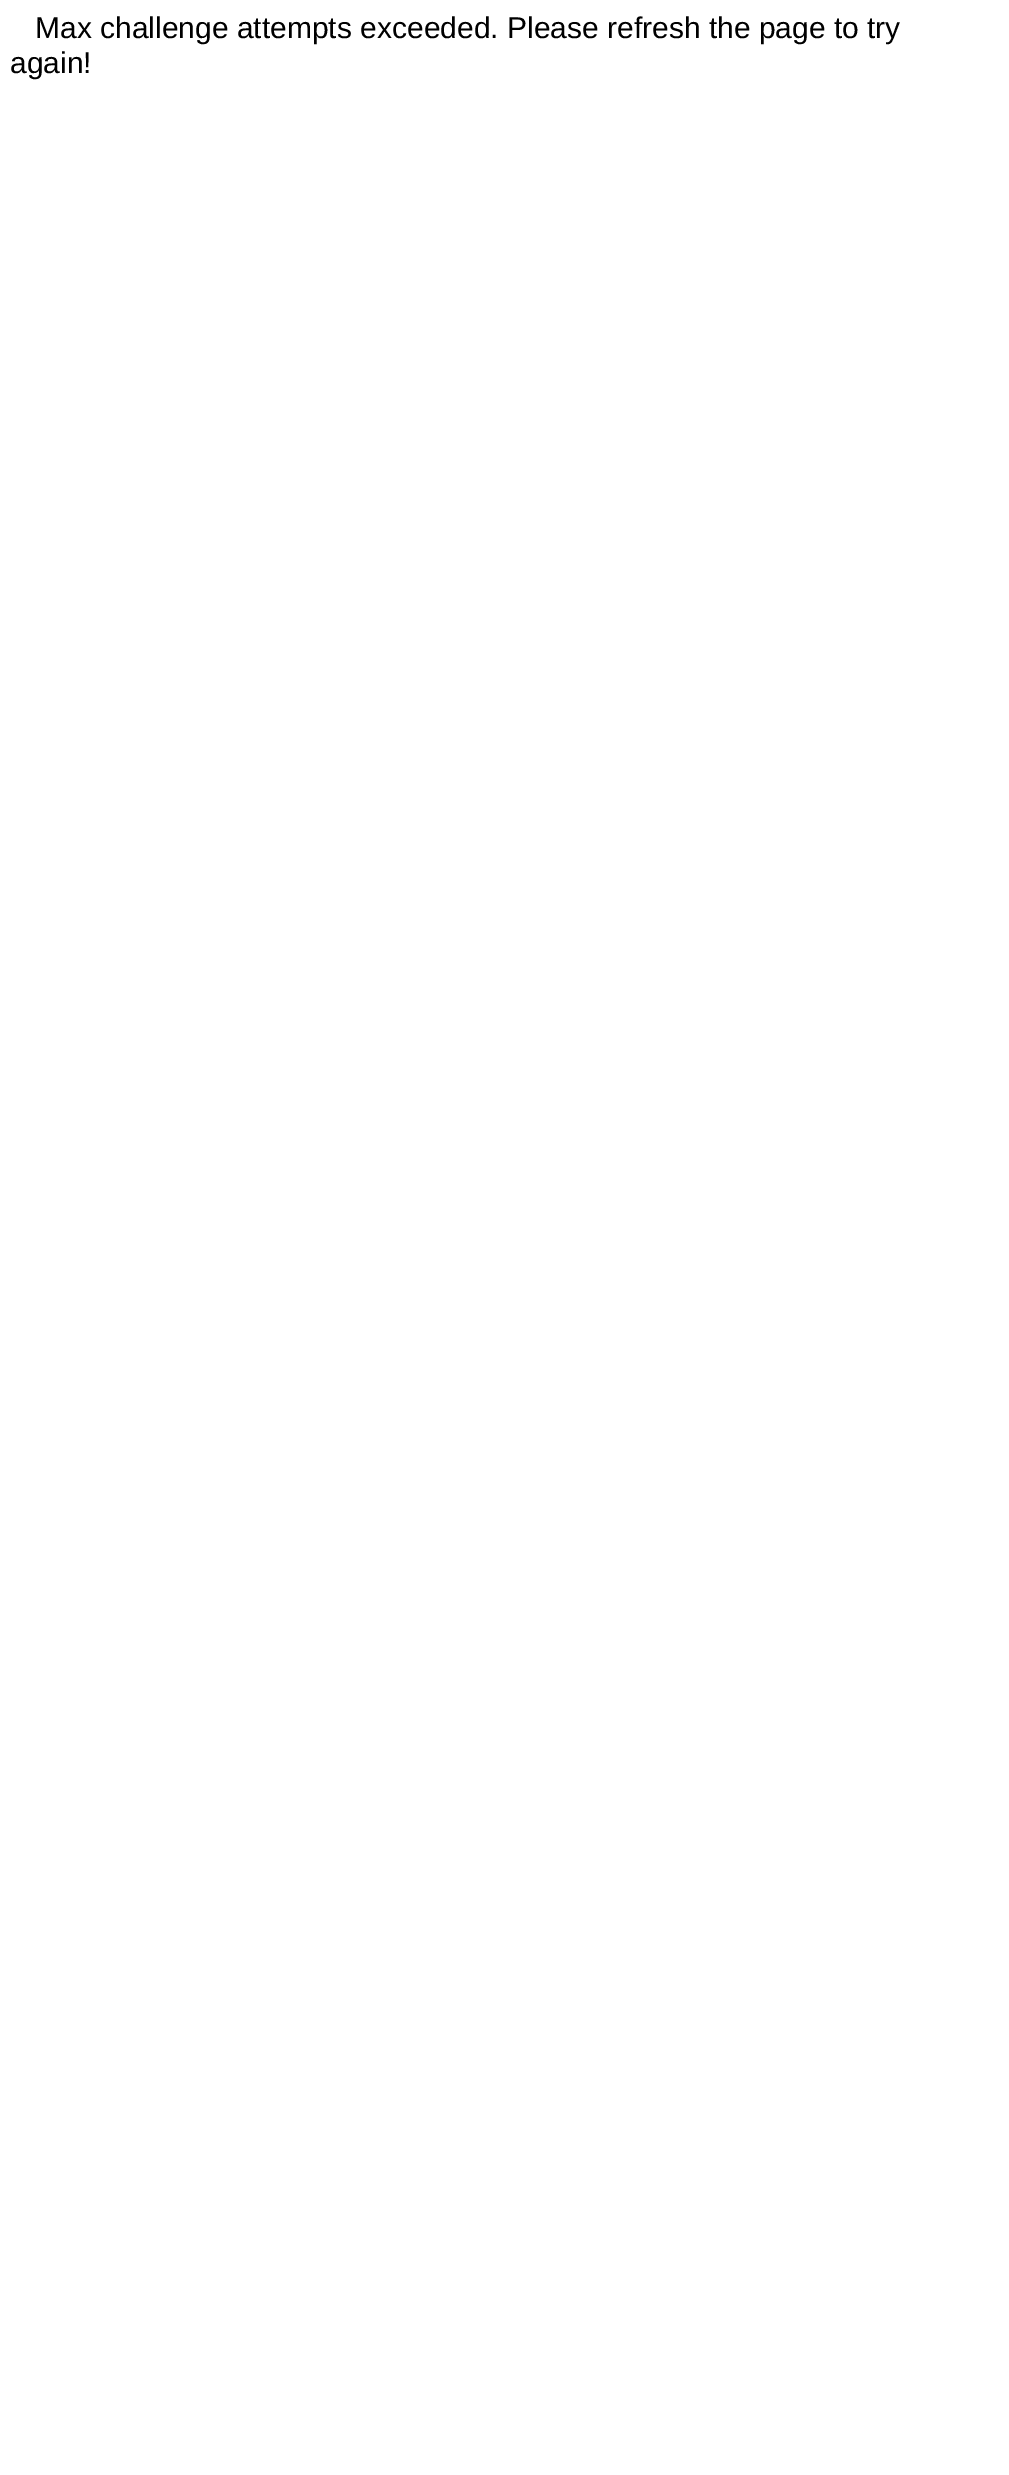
%!PS-Adobe-3.0
%%BoundingBox: 0 0 1009 2475
%%LanguageLevel: 3
%%Pages: 1
%%EndComments
%%BeginProlog
%%EndProlog
%%BeginSetup
<< /PageSize [1009 2475] >> setpagedevice
%%EndSetup
%%Page: 1 1
0 2475 translate 1 -1 scale
4 setmiterlimit
1 setgray
0 0 1009 2475 rectfill
/LiberationSans-Regular [30 0 0 -30 0 0] selectfont
0 setgray
35 38 moveto (Max challenge attempts exceeded. Please refresh the page to try) show
10 73 moveto (again!) show
showpage
%%EOF
